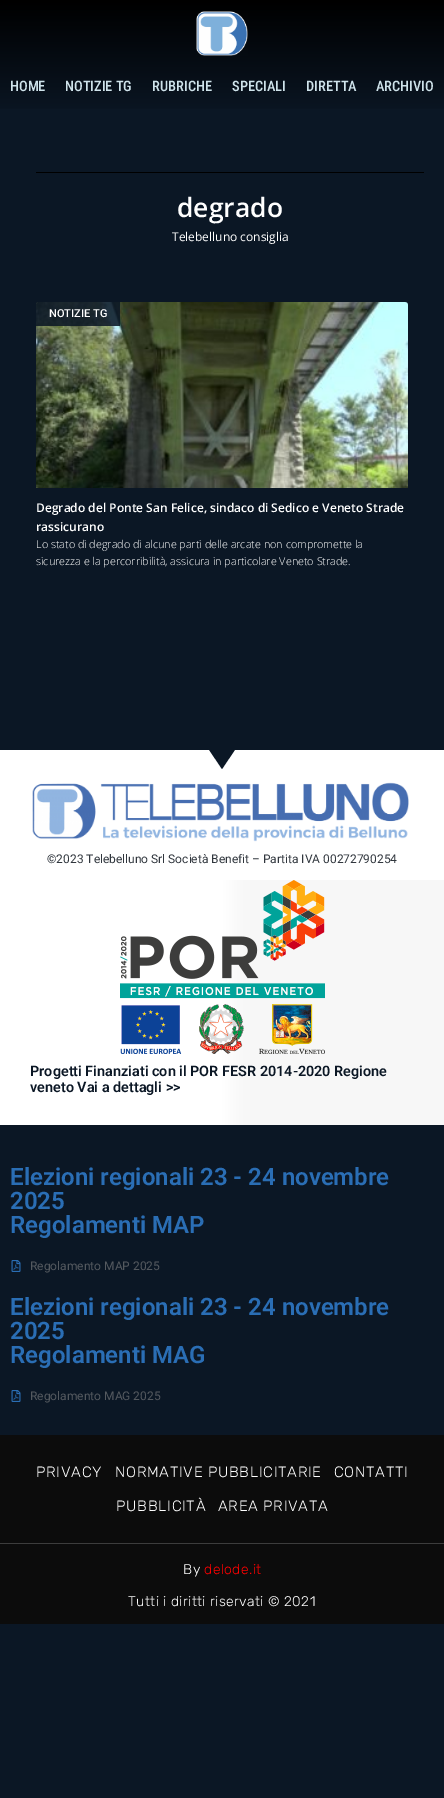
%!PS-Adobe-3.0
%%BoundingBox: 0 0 444 1798
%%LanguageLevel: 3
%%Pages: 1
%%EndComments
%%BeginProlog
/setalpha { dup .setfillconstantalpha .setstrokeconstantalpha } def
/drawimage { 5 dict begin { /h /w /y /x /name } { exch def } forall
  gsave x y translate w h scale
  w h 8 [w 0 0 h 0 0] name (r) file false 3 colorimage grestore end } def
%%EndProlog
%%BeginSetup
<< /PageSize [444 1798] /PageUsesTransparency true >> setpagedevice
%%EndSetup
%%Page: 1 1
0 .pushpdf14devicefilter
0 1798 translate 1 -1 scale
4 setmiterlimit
0.043 0.09 0.145 setrgbcolor
0 0 444 1798 rectfill
gsave newpath 0 0 moveto 444 0 lineto 444 109 lineto 0 109 lineto closepath clip newpath
<< /ShadingType 2 /ColorSpace /DeviceRGB /Coords [222 0 222 117] /Extend [true true] /Function << /FunctionType 2 /Domain [0 1] /C0 [0 0 0] /C1 [0.043 0.09 0.145] /N 1 >> >> shfill grestore
(images/1.raw) 196 11 52 45 drawimage
0 setgray
36 172 388 1 rectfill
(images/2.raw) 36 302 372 186 drawimage
0.87 setalpha
0.043 0.09 0.145 setrgbcolor
newpath 39 302 moveto 120 302 lineto 120 326 lineto 36 326 lineto 36 305 lineto 36 303.5 37.5 302 39 302 curveto closepath fill
1 setalpha
gsave newpath 0 880 moveto 444 880 lineto 444 1125 lineto 0 1125 lineto closepath clip newpath
<< /ShadingType 2 /ColorSpace /DeviceRGB /Coords [0 938 444 938] /Extend [true true] /Function << /FunctionType 3 /Domain [0 1] /Functions [<< /FunctionType 2 /Domain [0 1] /C0 [1 1 1] /C1 [1 1 1] /N 1 >> << /FunctionType 2 /Domain [0 1] /C0 [1 1 1] /C1 [0.969 0.969 0.969] /N 1 >> << /FunctionType 2 /Domain [0 1] /C0 [0.969 0.969 0.969] /C1 [0.969 0.969 0.969] /N 1 >>] /Bounds [0.5 0.55] /Encode [0 1 0 1 0 1] >> >> shfill grestore
1 setgray
0 750 444 130 rectfill
0.043 0.09 0.145 setrgbcolor
newpath 222 769 moveto 208.5 749 lineto 235.5 749 lineto closepath fill
(images/3.raw) 32 782 377 60 drawimage
(images/4.raw) 120 880 205 174 drawimage
(images/5.raw) 11 1260 10 12 drawimage
(images/5.raw) 11 1390 10 12 drawimage
0.047 setgray
0 1435 444 108 rectfill
0 1544 444 80 rectfill
0.239 setgray
0 1543 444 1 rectfill
/RobotoCondensed-Medium [14.4 0 0 -14.4 0 0] selectfont
0.812 0.89 0.922 setrgbcolor
10 91 moveto (HOME) show
65 91 moveto (NOTIZIE TG) show
152 91 moveto (RUBRICHE) show
232 91 moveto (SPECIALI) show
306 91 moveto (DIRETTA) show
376 91 moveto (ARCHIVIO) show
/OpenSans-SemiBold [26.5 0 0 -26.5 0 0] selectfont
1 setgray
177 217 moveto (degrado) show
/OpenSans-Regular [12 0 0 -12 0 0] selectfont
172 241 moveto (Telebelluno consiglia) show
/Roboto-Medium [11 0 0 -11 0 0] selectfont
49 317 moveto (NOTIZIE TG) show
/OpenSans-SemiBold [12 0 0 -12 0 0] selectfont
36 512 moveto (Degrado del Ponte San Felice, sindaco di Sedico e Veneto Strade) show
36 531 moveto (rassicurano) show
/OpenSans-Light [10.8 0 0 -10.8 0 0] selectfont
36 548 moveto (Lo stato di degrado di alcune parti delle arcate non compromette la) show
36 565 moveto (sicurezza e la percorribilità, assicura in particolare Veneto Strade.) show
/Roboto-Regular [12 0 0 -12 0 0] selectfont
0.188 0.212 0.239 setrgbcolor
47 863 moveto (©2023 Telebelluno Srl Società Benefit – Partita IVA 00272790254) show
/Roboto-SemiBold [14.4 0 0 -14.4 0 0] selectfont
0.043 0.09 0.145 setrgbcolor
30 1076 moveto (Progetti Finanziati con il POR FESR 2014-2020 Regione) show
30 1092 moveto (veneto Vai a dettagli >>) show
/Roboto-SemiBold [24 0 0 -24 0 0] selectfont
0.165 0.431 0.71 setrgbcolor
10 1185 moveto (Elezioni regionali 23 - 24 novembre) show
10 1209 moveto (2025) show
10 1233 moveto (Regolamenti MAP) show
/Roboto-Regular [12 0 0 -12 0 0] selectfont
0.329 0.349 0.373 setrgbcolor
30 1270 moveto (Regolamento MAP 2025) show
/Roboto-SemiBold [24 0 0 -24 0 0] selectfont
0.165 0.431 0.71 setrgbcolor
10 1315 moveto (Elezioni regionali 23 - 24 novembre) show
10 1339 moveto (2025) show
10 1363 moveto (Regolamenti MAG) show
/Roboto-Regular [12 0 0 -12 0 0] selectfont
0.329 0.349 0.373 setrgbcolor
30 1400 moveto (Regolamento MAG 2025) show
/Rubik-Light [15 0 0 -15 0 0] selectfont
1 setgray
36 1477 moveto 0.7 0 (PRIVACY) ashow
115 1477 moveto 0.7 0 (NORMATIVE PUBBLICITARIE) ashow
334 1477 moveto 0.7 0 (CONTATTI) ashow
116 1511 moveto 0.7 0 (PUBBLICITÀ) ashow
218 1511 moveto 0.7 0 (AREA PRIVATA) ashow
/Rubik-Light [14 0 0 -14 0 0] selectfont
183 1574 moveto 0.4 0 (By) ashow
1 0 0 setrgbcolor
204 1574 moveto 0.4 0 (delode.it) ashow
1 setgray
128 1606 moveto 0.4 0 (Tutti i diritti riservati © 2021) ashow
.poppdf14devicefilter showpage
%%EOF
